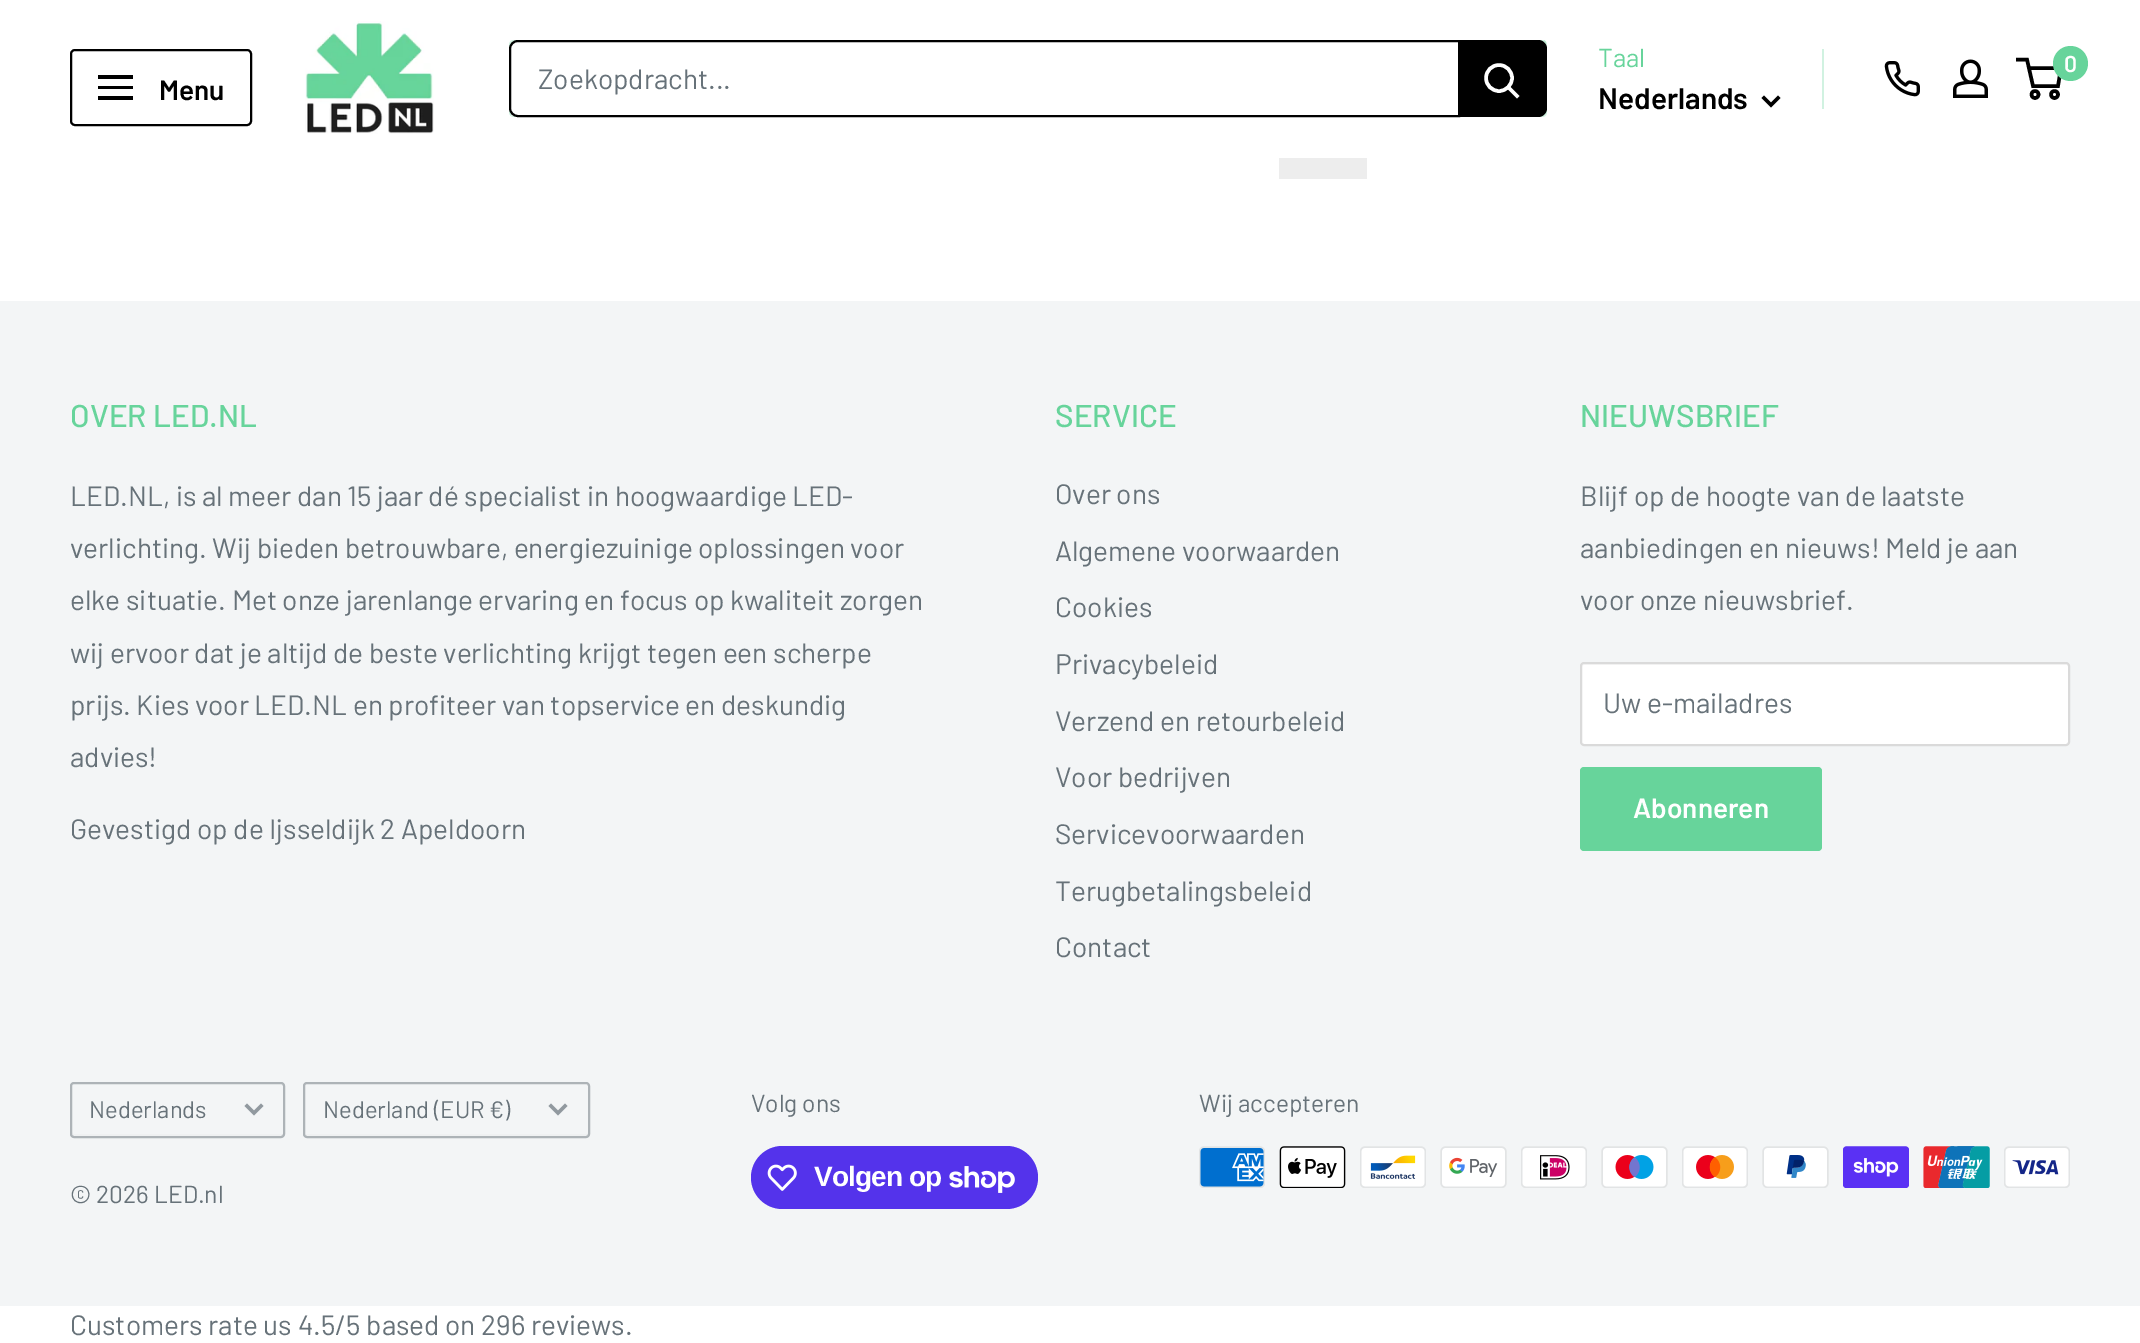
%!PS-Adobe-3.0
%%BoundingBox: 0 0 2140 1343
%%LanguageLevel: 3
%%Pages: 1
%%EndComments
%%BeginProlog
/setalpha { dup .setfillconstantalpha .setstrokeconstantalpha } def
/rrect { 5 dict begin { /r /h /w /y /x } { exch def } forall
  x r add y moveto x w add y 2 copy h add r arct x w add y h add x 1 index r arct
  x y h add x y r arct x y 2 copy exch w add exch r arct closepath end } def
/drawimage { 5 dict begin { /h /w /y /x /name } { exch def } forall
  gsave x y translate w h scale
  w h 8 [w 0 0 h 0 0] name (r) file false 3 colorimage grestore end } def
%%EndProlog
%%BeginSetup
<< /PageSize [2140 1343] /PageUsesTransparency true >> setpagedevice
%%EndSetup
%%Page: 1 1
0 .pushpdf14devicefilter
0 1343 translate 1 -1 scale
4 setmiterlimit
1 setgray
0 0 2140 1343 rectfill
0 setgray
2 setlinewidth
71 50 180 75 4 rrect stroke
newpath 98 96 moveto 133 96 lineto 133 100 lineto 98 100 lineto closepath 98 75 moveto 133 75 lineto 133 79 lineto 98 79 lineto closepath 98 86 moveto 133 86 lineto 133 89 lineto 98 89 lineto closepath eofill
(images/1.raw) 305 21 129 113 drawimage
0.82 0.949 0.882 setrgbcolor
newpath 510 114 moveto 510 116 512 117 514 117 curveto 1542 117 lineto 1545 117 1547 115 1547 112 curveto 1547 45 lineto 1547 43 1546 41 1544 40 curveto 1545 44 lineto 1545 110 lineto 1545 113 1543 116 1540 116 curveto 513 116 lineto 512 116 510 115 510 114 curveto closepath fill
0.3 setalpha
0.404 0.831 0.608 setrgbcolor
newpath 516 42 moveto 1544 42 lineto 1546 43 lineto 1546 41 1544 40 1542 40 curveto 514 40 lineto 511 40 509 42 509 45 curveto 509 112 lineto 509 114 510 115 511 116 curveto 511 114 lineto 511 47 lineto 511 44 513 42 516 42 curveto closepath fill
1 setalpha
0 setgray
newpath 518 41 moveto 1459 41 lineto 1459 116 lineto 518 116 lineto 513.5 116 510 112.5 510 108 curveto 510 49 lineto 510 44.5 513.5 41 518 41 curveto closepath stroke
newpath 1460 40 moveto 1538 40 lineto 1543 40 1547 44 1547 49 curveto 1547 108 lineto 1547 113 1543 117 1538 117 curveto 1460 117 lineto closepath fill
1 setgray
3.5 setlinewidth
2 setlinecap
newpath 1517 96 moveto 1508.5 87.5 lineto stroke
0 setlinecap
newpath 1499 78 13 0 360 arc closepath stroke
0 setgray
2 setlinecap
newpath 1778 98 moveto 1771 105 lineto 1764 98 lineto stroke
0.82 0.949 0.882 setrgbcolor
1822 49 2 60 rectfill
(images/2.raw) 1884 61 36 36 drawimage
(images/3.raw) 1953 59 35 39 drawimage
0 setgray
0 setlinecap
newpath 2035 94.5 3.5 0 360 arc closepath stroke
newpath 2054.5 94.5 3.5 0 360 arc closepath stroke
newpath 2029 68 moveto 2061 68 lineto 2058 86 lineto 2033 86 lineto 2027 59.5 lineto 2016 59.5 lineto stroke
0.404 0.831 0.608 setrgbcolor
newpath 2070.5 63.5 17.5 0 360 arc closepath fill
0.929 setgray
1279 158 88 21 rectfill
0.953 0.961 0.965 setrgbcolor
0 301 2140 1005 rectfill
1 setgray
1580 662 490 84 4 rrect fill
0.976 setgray
newpath 1584 665 moveto 2067 665 lineto 2068 665 2068 666 2068 667 curveto 2068 744 lineto 2069 743 2069 743 2069 742 curveto 2069 665 lineto 2069 664 2068 663 2067 663 curveto 1584 663 lineto 1583 663 1582 664 1582 665 curveto 1582 667 lineto 1582 666 1583 665 1584 665 curveto closepath fill
0.855 setgray
2 setlinewidth
1581 663 488 82 3 rrect stroke
0.404 0.831 0.608 setrgbcolor
1580 767 242 84 4 rrect fill
0.937 0.945 0.949 setrgbcolor
newpath 72 1132 moveto 72 1134 lineto 72 1135 73 1136 74 1136 curveto 282 1136 lineto 283 1136 284 1135 284 1134 curveto 284 1132 lineto 284 1133 283 1134 282 1134 curveto 74 1134 lineto 73 1134 72 1133 72 1132 curveto closepath fill
0.5 setalpha
0.404 0.447 0.475 setrgbcolor
71 1083 213 54 3 rrect stroke
1 setalpha
0.569 0.6 0.624 setrgbcolor
3.5 setlinewidth
2 setlinecap
newpath 261 1106 moveto 254 1113 lineto 247 1106 lineto stroke
0.937 0.945 0.949 setrgbcolor
newpath 305 1134 moveto 305 1135 306 1136 307 1136 curveto 586 1136 lineto 588 1136 588 1134 588 1132 curveto 588 1133 587 1134 586 1134 curveto closepath fill
0.678 0.702 0.718 setrgbcolor
2 setlinewidth
0 setlinecap
304 1083 285 54 3 rrect stroke
0.569 0.6 0.624 setrgbcolor
3.5 setlinewidth
2 setlinecap
newpath 565 1106 moveto 558 1113 lineto 551 1106 lineto stroke
0.329 0.2 0.922 setrgbcolor
751 1146 287 63 31.5 rrect fill
(images/4.raw) 767 1164 30 27 drawimage
(images/5.raw) 949 1166 66 27 drawimage
(images/6.raw) 1199 1146 66 42 drawimage
(images/7.raw) 1279 1146 67 42 drawimage
(images/8.raw) 1360 1146 66 42 drawimage
(images/9.raw) 1440 1146 67 42 drawimage
(images/10.raw) 1521 1146 66 42 drawimage
(images/11.raw) 1601 1146 67 42 drawimage
(images/12.raw) 1682 1146 66 42 drawimage
(images/13.raw) 1762 1146 67 42 drawimage
(images/14.raw) 1843 1146 66 42 drawimage
(images/15.raw) 1923 1146 67 42 drawimage
(images/16.raw) 2004 1146 66 42 drawimage
/Barlow-SemiBold [28 0 0 -28 0 0] selectfont
0 setgray
159 100 moveto (Menu) show
/Barlow-Regular [28 0 0 -28 0 0] selectfont
0.404 0.447 0.475 setrgbcolor
538 89 moveto (Zoekopdracht...) show
/Barlow-Regular [26 0 0 -26 0 0] selectfont
0.404 0.831 0.608 setrgbcolor
1598 67 moveto (Taal) show
/Barlow-SemiBold [29.75 0 0 -29.75 0 0] selectfont
0 setgray
1598 109 moveto (Nederlands) show
/Barlow-SemiBold [23 0 0 -23 0 0] selectfont
1 setgray
2064 72 moveto (0) show
/Barlow-Medium [31.5 0 0 -31.5 0 0] selectfont
0.404 0.831 0.608 setrgbcolor
70 427 moveto (OVER LED.NL) show
/Barlow-Regular [28 0 0 -28 0 0] selectfont
0.404 0.447 0.475 setrgbcolor
70 506 moveto (LED.NL, is al meer dan 15 jaar dé specialist in hoogwaardige LED-) show
70 558 moveto (verlichting. Wij bieden betrouwbare, energiezuinige oplossingen voor) show
70 610 moveto (elke situatie. Met onze jarenlange ervaring en focus op kwaliteit zorgen) show
70 663 moveto (wij ervoor dat je altijd de beste verlichting krijgt tegen een scherpe) show
70 715 moveto (prijs. Kies voor LED.NL en profiteer van topservice en deskundig) show
70 767 moveto (advies!) show
70 839 moveto (Gevestigd op de Ijsseldijk 2 Apeldoorn) show
/Barlow-Medium [31.5 0 0 -31.5 0 0] selectfont
0.404 0.831 0.608 setrgbcolor
1055 427 moveto (SERVICE) show
/Barlow-Regular [28 0 0 -28 0 0] selectfont
0.404 0.447 0.475 setrgbcolor
1055 504 moveto (Over ons) show
1055 561 moveto (Algemene voorwaarden) show
1055 617 moveto (Cookies) show
1055 674 moveto (Privacybeleid) show
1055 731 moveto (Verzend en retourbeleid) show
1055 787 moveto (Voor bedrijven) show
1055 844 moveto (Servicevoorwaarden) show
1055 901 moveto (Terugbetalingsbeleid) show
1055 957 moveto (Contact) show
/Barlow-Medium [31.5 0 0 -31.5 0 0] selectfont
0.404 0.831 0.608 setrgbcolor
1580 427 moveto (NIEUWSBRIEF) show
/Barlow-Regular [28 0 0 -28 0 0] selectfont
0.404 0.447 0.475 setrgbcolor
1580 506 moveto (Blijf op de hoogte van de laatste) show
1580 558 moveto (aanbiedingen en nieuws! Meld je aan) show
1580 610 moveto (voor onze nieuwsbrief.) show
1603 713 moveto (Uw e-mailadres) show
/Barlow-SemiBold [28 0 0 -28 0 0] selectfont
1 setgray
1633 818 moveto (Abonneren) show
/Barlow-Regular [23.75 0 0 -23.75 0 0] selectfont
0.404 0.447 0.475 setrgbcolor
89 1118 moveto (Nederlands) show
323 1118 moveto (Nederland \(EUR €\)) show
/Barlow-Regular [24.5 0 0 -24.5 0 0] selectfont
70 1203 moveto (© 2026 LED.nl) show
751 1112 moveto (Volg ons) show
/LiberationSans-Bold [28 0 0 -28 0 0] selectfont
1 setgray
814 1186 moveto -0.9 0 (Volgen op) ashow
/Barlow-Regular [24.5 0 0 -24.5 0 0] selectfont
0.404 0.447 0.475 setrgbcolor
1199 1112 moveto (Wij accepteren) show
/Barlow-Regular [28 0 0 -28 0 0] selectfont
70 1335 moveto (Customers rate us 4.5/5 based on 296 reviews.) show
.poppdf14devicefilter showpage
%%EOF
